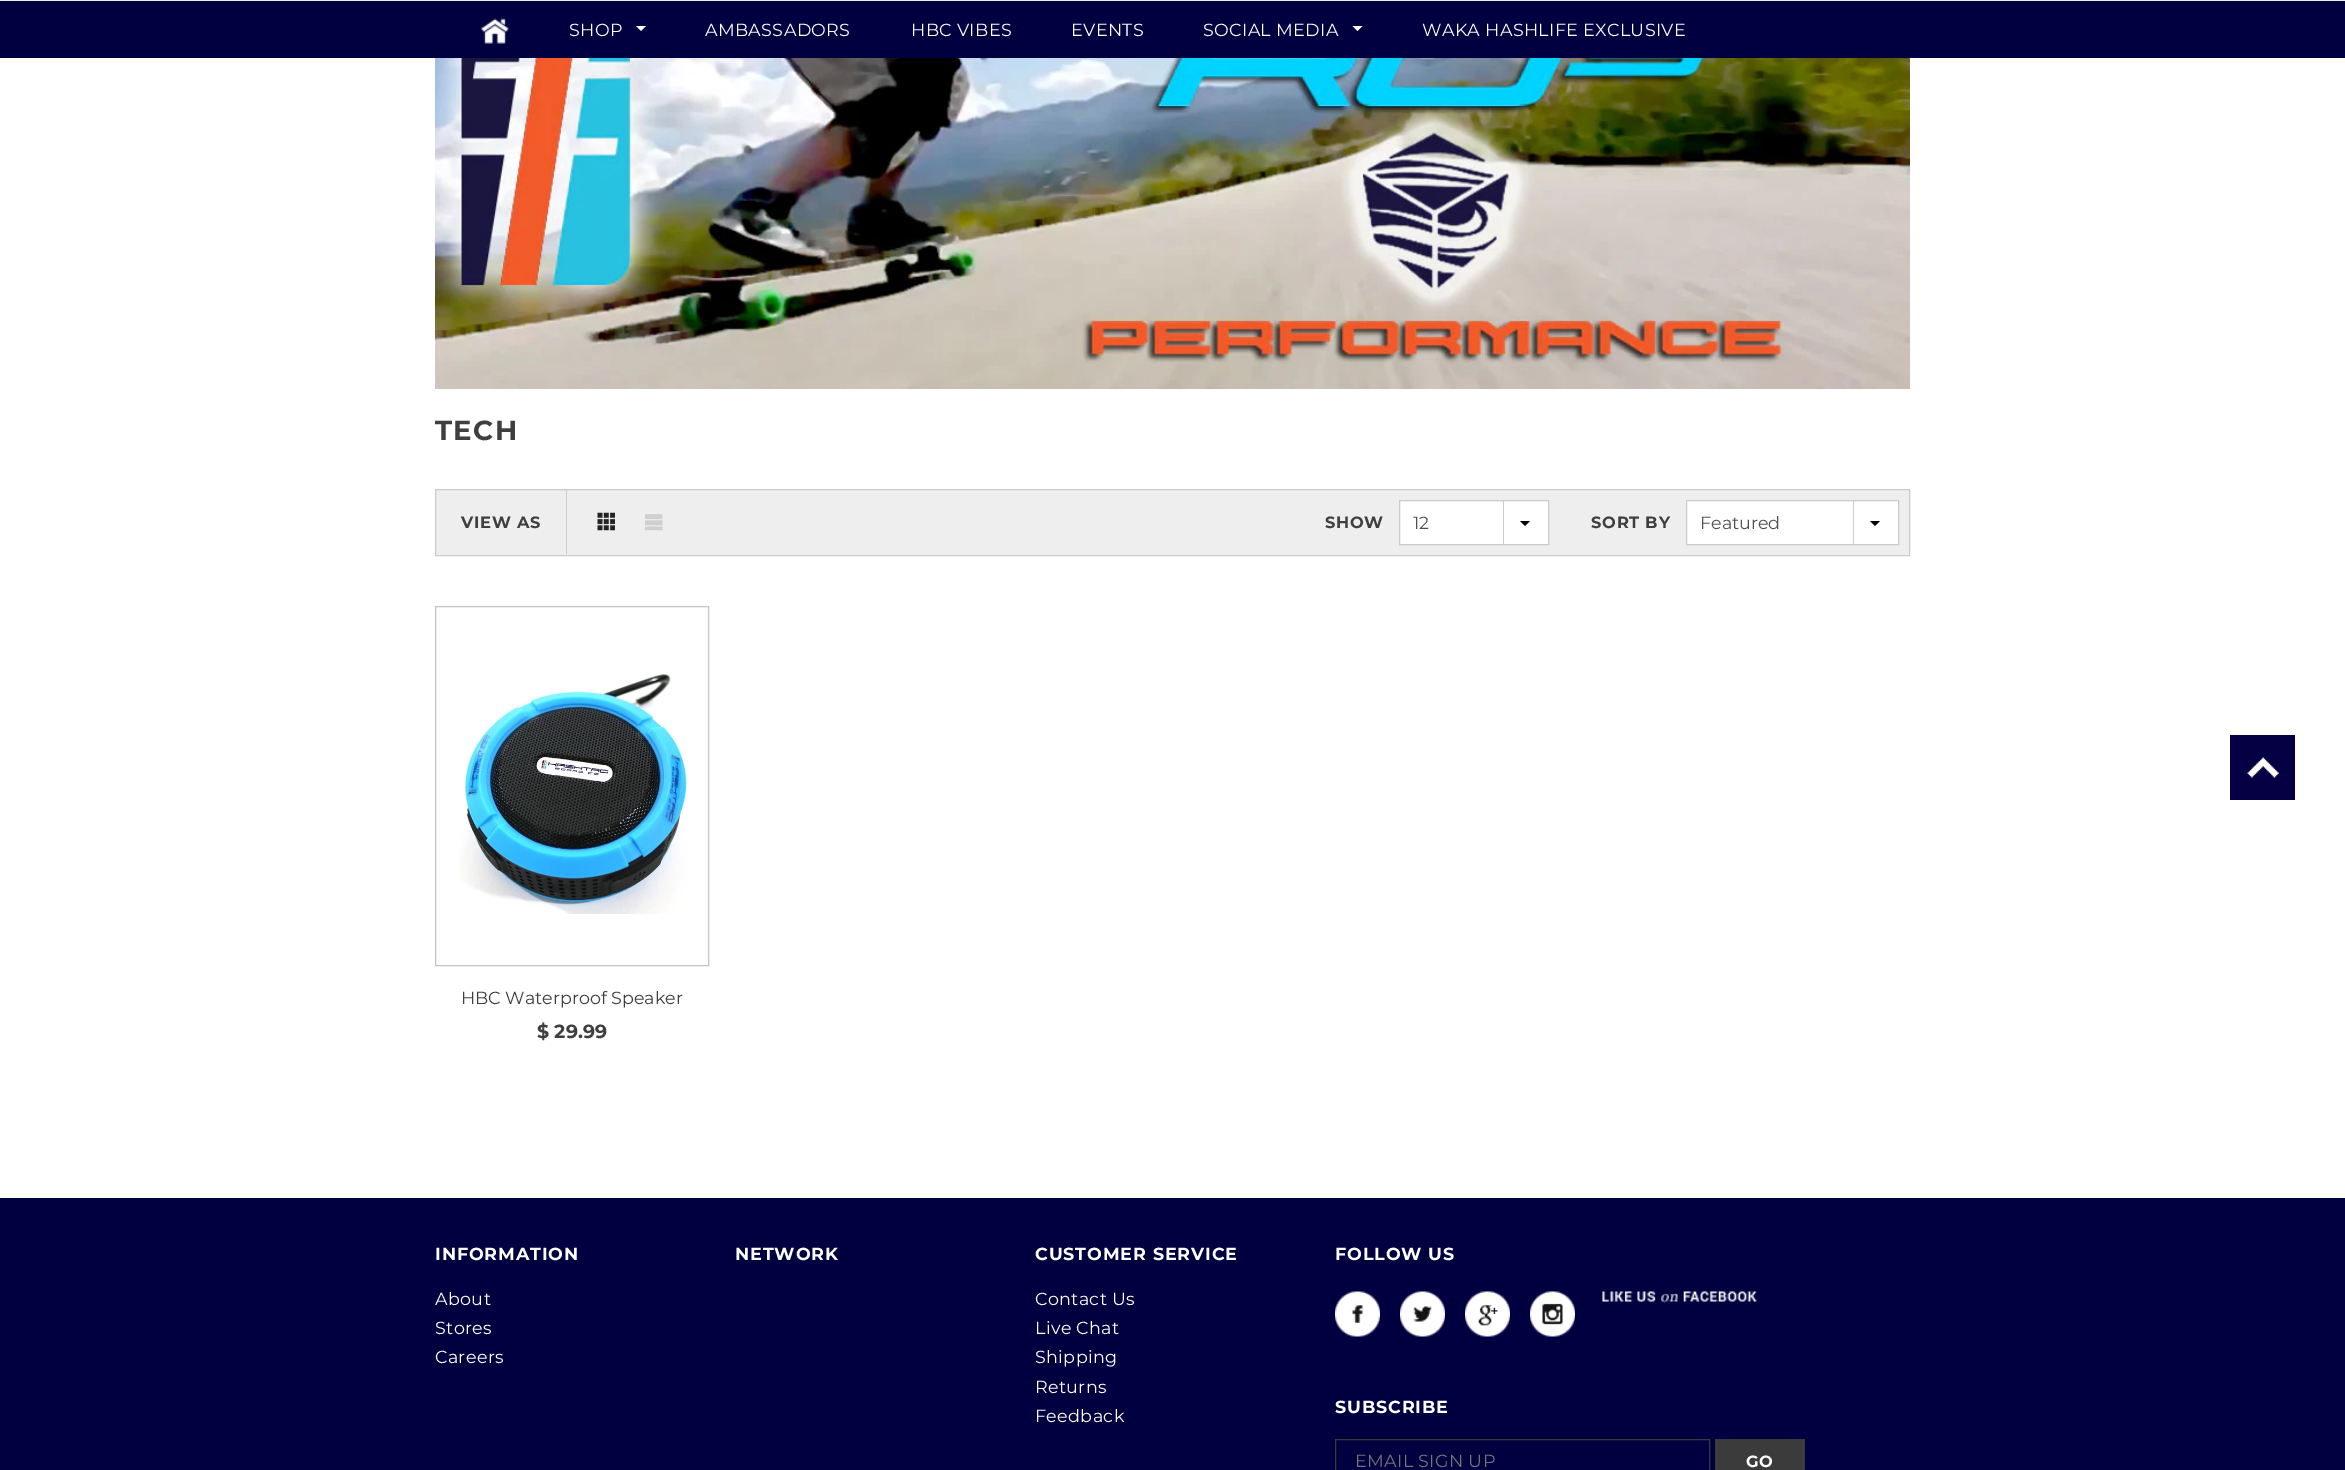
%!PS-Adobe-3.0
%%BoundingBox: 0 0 2345 1470
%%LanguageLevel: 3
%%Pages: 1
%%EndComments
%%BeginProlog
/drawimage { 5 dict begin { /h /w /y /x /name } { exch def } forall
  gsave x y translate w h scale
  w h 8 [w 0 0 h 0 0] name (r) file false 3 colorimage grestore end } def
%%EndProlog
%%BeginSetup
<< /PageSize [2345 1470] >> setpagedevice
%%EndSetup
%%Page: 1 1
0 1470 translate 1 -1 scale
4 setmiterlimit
1 setgray
0 0 2345 1470 rectfill
0 0 0.251 setrgbcolor
0 1 2345 57 rectfill
0.925 setgray
0 0 2345 1 rectfill
(images/1.raw) 481 18 28 26 drawimage
1 setgray
newpath 636 26 moveto 646 26 lineto 641 31 lineto closepath fill
newpath 1352.5 26 moveto 1362.5 26 lineto 1357.5 31 lineto closepath fill
(images/2.raw) 435 58 1475 331 drawimage
0.933 setgray
newpath 435.5 489.5 moveto 1909.5 489.5 lineto 1909.5 555.5 lineto 435.5 555.5 lineto closepath gsave fill grestore
0.796 setgray
stroke
566 490 1 64 rectfill
(images/3.raw) 597 512 18 19 drawimage
(images/4.raw) 645 514 18 17 drawimage
1 setgray
newpath 1399.5 500.5 moveto 1548.5 500.5 lineto 1548.5 544.5 lineto 1399.5 544.5 lineto closepath gsave fill grestore
0.796 setgray
stroke
1503 501 1 44 rectfill
0 setgray
newpath 1520 521 moveto 1530 521 lineto 1525 526 lineto closepath fill
1 setgray
newpath 1686.5 500.5 moveto 1898.5 500.5 lineto 1898.5 544.5 lineto 1686.5 544.5 lineto closepath gsave fill grestore
0.796 setgray
stroke
1853 501 1 44 rectfill
0 setgray
newpath 1870 521 moveto 1880 521 lineto 1875 526 lineto closepath fill
0.765 setgray
435.5 606.5 273 359 rectstroke
(images/5.raw) 459 674 229 240 drawimage
0.02 0 0.267 setrgbcolor
2230 735 65 65 rectfill
(images/6.raw) 2247 757 32 21 drawimage
0 0 0.251 setrgbcolor
0 1198 2345 272 rectfill
(images/7.raw) 1335 1291 45 46 drawimage
(images/8.raw) 1400 1291 45 46 drawimage
(images/9.raw) 1465 1291 45 46 drawimage
(images/10.raw) 1530 1291 45 46 drawimage
(images/11.raw) 1602 1291 155 12 drawimage
0.231 setgray
1335.5 1439.5 374 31 rectstroke
1715 1439 90 31 rectfill
/Montserrat-Regular [17.5 0 0 -17.5 0 0] selectfont
1 setgray
569 36 moveto 0.35 0 (SHOP) ashow
705 36 moveto 0.35 0 (AMBASSADORS) ashow
911 36 moveto 0.35 0 (HBC VIBES) ashow
1071 36 moveto 0.35 0 (EVENTS) ashow
1203 36 moveto 0.35 0 (SOCIAL MEDIA) ashow
1422 36 moveto 0.35 0 (WAKA HASHLIFE EXCLUSIVE) ashow
/Montserrat-Bold [27.5 0 0 -27.5 0 0] selectfont
0.247 setgray
435 440 moveto 1.5 0 (TECH) ashow
/Montserrat-Bold [16.25 0 0 -16.25 0 0] selectfont
461 528 moveto 0.75 0 (VIEW AS) ashow
1325 528 moveto 0.75 0 (SHOW) ashow
/Montserrat-Regular [17.5 0 0 -17.5 0 0] selectfont
0.314 setgray
1413 529 moveto (12) show
/Montserrat-Bold [16.25 0 0 -16.25 0 0] selectfont
0.247 setgray
1591 528 moveto 0.75 0 (SORT BY) ashow
/Montserrat-Regular [17.5 0 0 -17.5 0 0] selectfont
0.314 setgray
1700 529 moveto (Featured) show
0.247 setgray
461 1004 moveto (HBC Waterproof Speaker) show
/Montserrat-Bold [19 0 0 -19 0 0] selectfont
537 1038 moveto ($ 29.99) show
/Montserrat-Bold [17.5 0 0 -17.5 0 0] selectfont
1 setgray
435 1260 moveto 0.9 0 (INFORMATION) ashow
/Montserrat-Regular [17.5 0 0 -17.5 0 0] selectfont
435 1305 moveto 0.35 0 (About) ashow
435 1334 moveto 0.35 0 (Stores) ashow
435 1363 moveto 0.35 0 (Careers) ashow
/Montserrat-Bold [17.5 0 0 -17.5 0 0] selectfont
735 1260 moveto 0.9 0 (NETWORK) ashow
1035 1260 moveto 0.9 0 (CUSTOMER SERVICE) ashow
/Montserrat-Regular [17.5 0 0 -17.5 0 0] selectfont
1035 1305 moveto 0.35 0 (Contact Us) ashow
1035 1334 moveto 0.35 0 (Live Chat) ashow
1035 1363 moveto 0.35 0 (Shipping) ashow
1035 1393 moveto 0.35 0 (Returns) ashow
1035 1422 moveto 0.35 0 (Feedback) ashow
/Montserrat-Bold [17.5 0 0 -17.5 0 0] selectfont
1335 1260 moveto 0.9 0 (FOLLOW US) ashow
1335 1413 moveto 0.9 0 (SUBSCRIBE) ashow
/Montserrat-Regular [17.5 0 0 -17.5 0 0] selectfont
0.459 setgray
1355 1467 moveto 0.35 0 (EMAIL SIGN UP) ashow
/Montserrat-Bold [16.25 0 0 -16.25 0 0] selectfont
1 setgray
1746 1467 moveto 0.75 0 (GO) ashow
showpage
%%EOF
